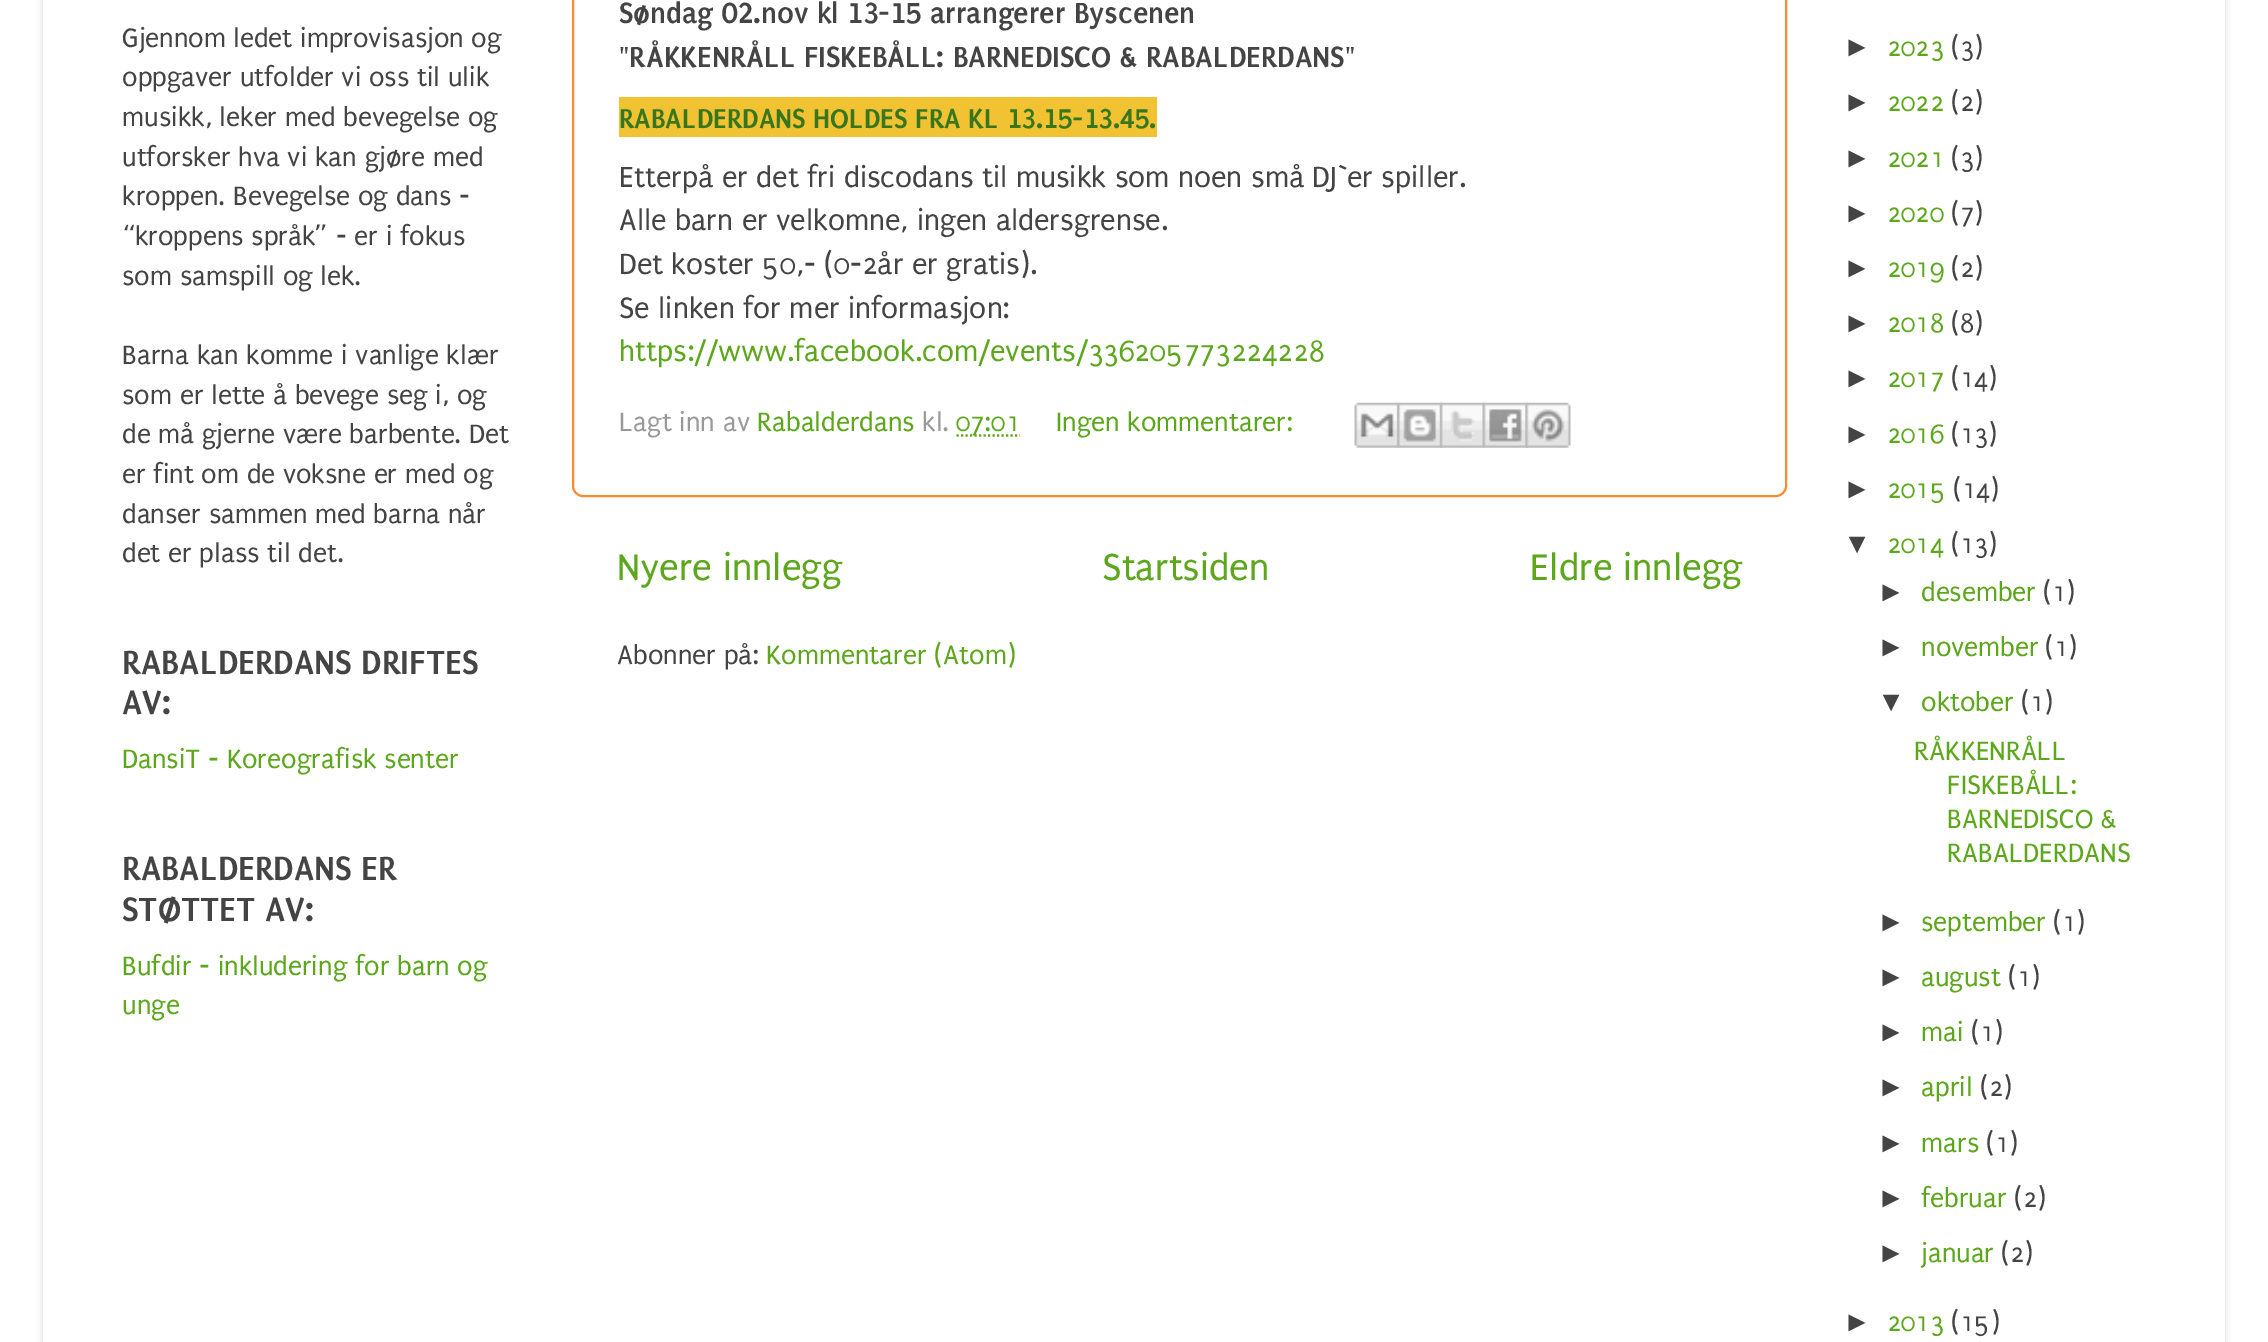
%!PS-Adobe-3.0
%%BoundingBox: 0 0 2268 1342
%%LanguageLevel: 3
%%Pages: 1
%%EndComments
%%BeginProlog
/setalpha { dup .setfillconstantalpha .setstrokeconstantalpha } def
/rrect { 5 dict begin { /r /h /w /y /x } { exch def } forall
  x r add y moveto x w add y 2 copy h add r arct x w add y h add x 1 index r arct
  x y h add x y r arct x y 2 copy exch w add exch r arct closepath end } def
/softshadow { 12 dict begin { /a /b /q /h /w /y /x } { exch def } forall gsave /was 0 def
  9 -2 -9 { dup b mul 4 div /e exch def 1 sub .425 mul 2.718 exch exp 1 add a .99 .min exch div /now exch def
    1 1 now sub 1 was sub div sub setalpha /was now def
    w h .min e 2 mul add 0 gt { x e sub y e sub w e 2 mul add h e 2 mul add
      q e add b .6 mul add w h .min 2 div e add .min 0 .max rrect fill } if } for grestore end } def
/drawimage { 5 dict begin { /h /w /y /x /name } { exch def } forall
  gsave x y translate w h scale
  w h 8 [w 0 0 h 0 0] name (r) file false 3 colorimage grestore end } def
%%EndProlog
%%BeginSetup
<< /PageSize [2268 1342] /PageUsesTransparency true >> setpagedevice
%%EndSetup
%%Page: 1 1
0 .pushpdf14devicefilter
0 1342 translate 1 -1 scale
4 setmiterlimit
1 setgray
0 0 2268 1342 rectfill
gsave
newpath 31 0 moveto 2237 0 lineto 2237 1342 lineto 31 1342 lineto closepath 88 -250 moveto 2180 -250 lineto 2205 -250 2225 -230 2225 -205 curveto 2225 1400 lineto 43 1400 lineto 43 -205 lineto 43 -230 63 -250 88 -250 curveto closepath eoclip newpath
0 setgray
43 -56 2182 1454 45 3.5 0.15 softshadow
grestore
0.98 0.541 0.196 setrgbcolor
2 setlinewidth
573 -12 1213 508 10 rrect stroke
0.945 0.761 0.196 setrgbcolor
619 97 538 40 rectfill
0.361 0.655 0.106 setrgbcolor
2.2 setlinewidth
[2.25 2.25] 0 setdash
newpath 956.5 435.5 moveto 1020 435.5 lineto stroke
(images/1.raw) 1354 402 46 46 drawimage
(images/2.raw) 1397 402 46 46 drawimage
(images/3.raw) 1440 402 45 46 drawimage
(images/4.raw) 1482 402 46 46 drawimage
(images/5.raw) 1525 402 46 46 drawimage
/Puritan-Regular [28.4 0 0 -28.4 0 0] selectfont
0.267 setgray
122 47 moveto (Gjennom ledet improvisasjon og) show
122 86 moveto (oppgaver utfolder vi oss til ulik) show
122 126 moveto (musikk, leker med bevegelse og) show
122 166 moveto (utforsker hva vi kan gjøre med) show
122 205 moveto (kroppen. Bevegelse og dans -) show
122 245 moveto (“kroppens språk” - er i fokus) show
122 285 moveto (som samspill og lek.) show
122 364 moveto (Barna kan komme i vanlige klær) show
122 404 moveto (som er lette å bevege seg i, og) show
122 443 moveto (de må gjerne være barbente. Det) show
122 483 moveto (er fint om de voksne er med og) show
122 523 moveto (danser sammen med barna når) show
122 562 moveto (det er plass til det.) show
/Puritan-Bold [36 0 0 -36 0 0] selectfont
122 674 moveto (RABALDERDANS DRIFTES) show
122 714 moveto (AV:) show
/Puritan-Regular [28.4 0 0 -28.4 0 0] selectfont
0.361 0.655 0.106 setrgbcolor
122 768 moveto (DansiT - Koreografisk senter) show
/Puritan-Bold [36 0 0 -36 0 0] selectfont
0.267 setgray
122 880 moveto (RABALDERDANS ER) show
122 921 moveto (STØTTET AV:) show
/Puritan-Regular [28.4 0 0 -28.4 0 0] selectfont
0.361 0.655 0.106 setrgbcolor
122 975 moveto (Bufdir - inkludering for barn og) show
122 1014 moveto (unge) show
/Puritan-Bold [31.2 0 0 -31.2 0 0] selectfont
0.267 setgray
619 23 moveto (Søndag 02.nov kl 13-15 arrangerer Byscenen) show
619 67 moveto ("RÅKKENRÅLL FISKEBÅLL: BARNEDISCO & RABALDERDANS") show
/Puritan-Bold [29.25 0 0 -29.25 0 0] selectfont
0.22 0.463 0.114 setrgbcolor
619 128 moveto (RABALDERDANS HOLDES FRA KL 13.15-13.45.) show
/Puritan-Regular [31.2 0 0 -31.2 0 0] selectfont
0.267 setgray
619 187 moveto (Etterpå er det fri discodans til musikk som noen små DJ`er spiller.) show
619 230 moveto (Alle barn er velkomne, ingen aldersgrense.) show
619 274 moveto (Det koster 50,- \(0-2år er gratis\).) show
619 318 moveto (Se linken for mer informasjon:) show
0.361 0.655 0.106 setrgbcolor
619 361 moveto (https://www.facebook.com/events/336205773224228) show
/Puritan-Regular [28.4 0 0 -28.4 0 0] selectfont
0.6 setgray
619 431 moveto (Lagt inn av) show
0.361 0.655 0.106 setrgbcolor
757 431 moveto (Rabalderdans) show
0.6 setgray
922 431 moveto (kl.) show
0.361 0.655 0.106 setrgbcolor
956 431 moveto (07:01) show
1056 431 moveto (Ingen kommentarer:) show
/Puritan-Regular [39.75 0 0 -39.75 0 0] selectfont
617 580 moveto (Nyere innlegg) show
1102 580 moveto (Startsiden) show
1530 580 moveto (Eldre innlegg) show
/Puritan-Regular [28.4 0 0 -28.4 0 0] selectfont
0.267 setgray
617 664 moveto (Abonner på:) show
0.361 0.655 0.106 setrgbcolor
766 664 moveto (Kommentarer \(Atom\)) show
/LiberationSans-Regular [28.4 0 0 -28.4 0 0] selectfont
0.267 setgray
1843 56 moveto (►) show
/Puritan-Regular [28.4 0 0 -28.4 0 0] selectfont
0.361 0.655 0.106 setrgbcolor
1887 56 moveto (2023) show
0.267 setgray
1951 56 moveto (\(3\)) show
/LiberationSans-Regular [28.4 0 0 -28.4 0 0] selectfont
1843 111 moveto (►) show
/Puritan-Regular [28.4 0 0 -28.4 0 0] selectfont
0.361 0.655 0.106 setrgbcolor
1887 111 moveto (2022) show
0.267 setgray
1951 111 moveto (\(2\)) show
/LiberationSans-Regular [28.4 0 0 -28.4 0 0] selectfont
1843 167 moveto (►) show
/Puritan-Regular [28.4 0 0 -28.4 0 0] selectfont
0.361 0.655 0.106 setrgbcolor
1887 167 moveto (2021) show
0.267 setgray
1951 167 moveto (\(3\)) show
/LiberationSans-Regular [28.4 0 0 -28.4 0 0] selectfont
1843 222 moveto (►) show
/Puritan-Regular [28.4 0 0 -28.4 0 0] selectfont
0.361 0.655 0.106 setrgbcolor
1887 222 moveto (2020) show
0.267 setgray
1951 222 moveto (\(7\)) show
/LiberationSans-Regular [28.4 0 0 -28.4 0 0] selectfont
1843 277 moveto (►) show
/Puritan-Regular [28.4 0 0 -28.4 0 0] selectfont
0.361 0.655 0.106 setrgbcolor
1887 277 moveto (2019) show
0.267 setgray
1951 277 moveto (\(2\)) show
/LiberationSans-Regular [28.4 0 0 -28.4 0 0] selectfont
1843 332 moveto (►) show
/Puritan-Regular [28.4 0 0 -28.4 0 0] selectfont
0.361 0.655 0.106 setrgbcolor
1887 332 moveto (2018) show
0.267 setgray
1951 332 moveto (\(8\)) show
/LiberationSans-Regular [28.4 0 0 -28.4 0 0] selectfont
1843 387 moveto (►) show
/Puritan-Regular [28.4 0 0 -28.4 0 0] selectfont
0.361 0.655 0.106 setrgbcolor
1887 387 moveto (2017) show
0.267 setgray
1951 387 moveto (\(14\)) show
/LiberationSans-Regular [28.4 0 0 -28.4 0 0] selectfont
1843 443 moveto (►) show
/Puritan-Regular [28.4 0 0 -28.4 0 0] selectfont
0.361 0.655 0.106 setrgbcolor
1887 443 moveto (2016) show
0.267 setgray
1951 443 moveto (\(13\)) show
/LiberationSans-Regular [28.4 0 0 -28.4 0 0] selectfont
1843 498 moveto (►) show
/Puritan-Regular [28.4 0 0 -28.4 0 0] selectfont
0.361 0.655 0.106 setrgbcolor
1887 498 moveto (2015) show
0.267 setgray
1953 498 moveto (\(14\)) show
/LiberationSans-Regular [28.4 0 0 -28.4 0 0] selectfont
1843 553 moveto (▼) show
/Puritan-Regular [28.4 0 0 -28.4 0 0] selectfont
0.361 0.655 0.106 setrgbcolor
1887 553 moveto (2014) show
0.267 setgray
1951 553 moveto (\(13\)) show
/LiberationSans-Regular [28.4 0 0 -28.4 0 0] selectfont
1877 601 moveto (►) show
/Puritan-Regular [28.4 0 0 -28.4 0 0] selectfont
0.361 0.655 0.106 setrgbcolor
1921 601 moveto (desember) show
0.267 setgray
2043 601 moveto (\(1\)) show
/LiberationSans-Regular [28.4 0 0 -28.4 0 0] selectfont
1877 656 moveto (►) show
/Puritan-Regular [28.4 0 0 -28.4 0 0] selectfont
0.361 0.655 0.106 setrgbcolor
1921 656 moveto (november) show
0.267 setgray
2045 656 moveto (\(1\)) show
/LiberationSans-Regular [28.4 0 0 -28.4 0 0] selectfont
1877 711 moveto (▼) show
/Puritan-Regular [28.4 0 0 -28.4 0 0] selectfont
0.361 0.655 0.106 setrgbcolor
1921 711 moveto (oktober) show
0.267 setgray
2021 711 moveto (\(1\)) show
0.361 0.655 0.106 setrgbcolor
1914 760 moveto (RÅKKENRÅLL) show
1947 794 moveto (FISKEBÅLL:) show
1947 828 moveto (BARNEDISCO &) show
1947 862 moveto (RABALDERDANS) show
/LiberationSans-Regular [28.4 0 0 -28.4 0 0] selectfont
0.267 setgray
1877 931 moveto (►) show
/Puritan-Regular [28.4 0 0 -28.4 0 0] selectfont
0.361 0.655 0.106 setrgbcolor
1921 931 moveto (september) show
0.267 setgray
2053 931 moveto (\(1\)) show
/LiberationSans-Regular [28.4 0 0 -28.4 0 0] selectfont
1877 986 moveto (►) show
/Puritan-Regular [28.4 0 0 -28.4 0 0] selectfont
0.361 0.655 0.106 setrgbcolor
1921 986 moveto (august) show
0.267 setgray
2008 986 moveto (\(1\)) show
/LiberationSans-Regular [28.4 0 0 -28.4 0 0] selectfont
1877 1041 moveto (►) show
/Puritan-Regular [28.4 0 0 -28.4 0 0] selectfont
0.361 0.655 0.106 setrgbcolor
1921 1041 moveto (mai) show
0.267 setgray
1971 1041 moveto (\(1\)) show
/LiberationSans-Regular [28.4 0 0 -28.4 0 0] selectfont
1877 1096 moveto (►) show
/Puritan-Regular [28.4 0 0 -28.4 0 0] selectfont
0.361 0.655 0.106 setrgbcolor
1921 1096 moveto (april) show
0.267 setgray
1980 1096 moveto (\(2\)) show
/LiberationSans-Regular [28.4 0 0 -28.4 0 0] selectfont
1877 1152 moveto (►) show
/Puritan-Regular [28.4 0 0 -28.4 0 0] selectfont
0.361 0.655 0.106 setrgbcolor
1921 1152 moveto (mars) show
0.267 setgray
1986 1152 moveto (\(1\)) show
/LiberationSans-Regular [28.4 0 0 -28.4 0 0] selectfont
1877 1207 moveto (►) show
/Puritan-Regular [28.4 0 0 -28.4 0 0] selectfont
0.361 0.655 0.106 setrgbcolor
1921 1207 moveto (februar) show
0.267 setgray
2014 1207 moveto (\(2\)) show
/LiberationSans-Regular [28.4 0 0 -28.4 0 0] selectfont
1877 1262 moveto (►) show
/Puritan-Regular [28.4 0 0 -28.4 0 0] selectfont
0.361 0.655 0.106 setrgbcolor
1921 1262 moveto (januar) show
0.267 setgray
2001 1262 moveto (\(2\)) show
/LiberationSans-Regular [28.4 0 0 -28.4 0 0] selectfont
1843 1331 moveto (►) show
/Puritan-Regular [28.4 0 0 -28.4 0 0] selectfont
0.361 0.655 0.106 setrgbcolor
1887 1331 moveto (2013) show
0.267 setgray
1951 1331 moveto (\(15\)) show
.poppdf14devicefilter showpage
%%EOF
